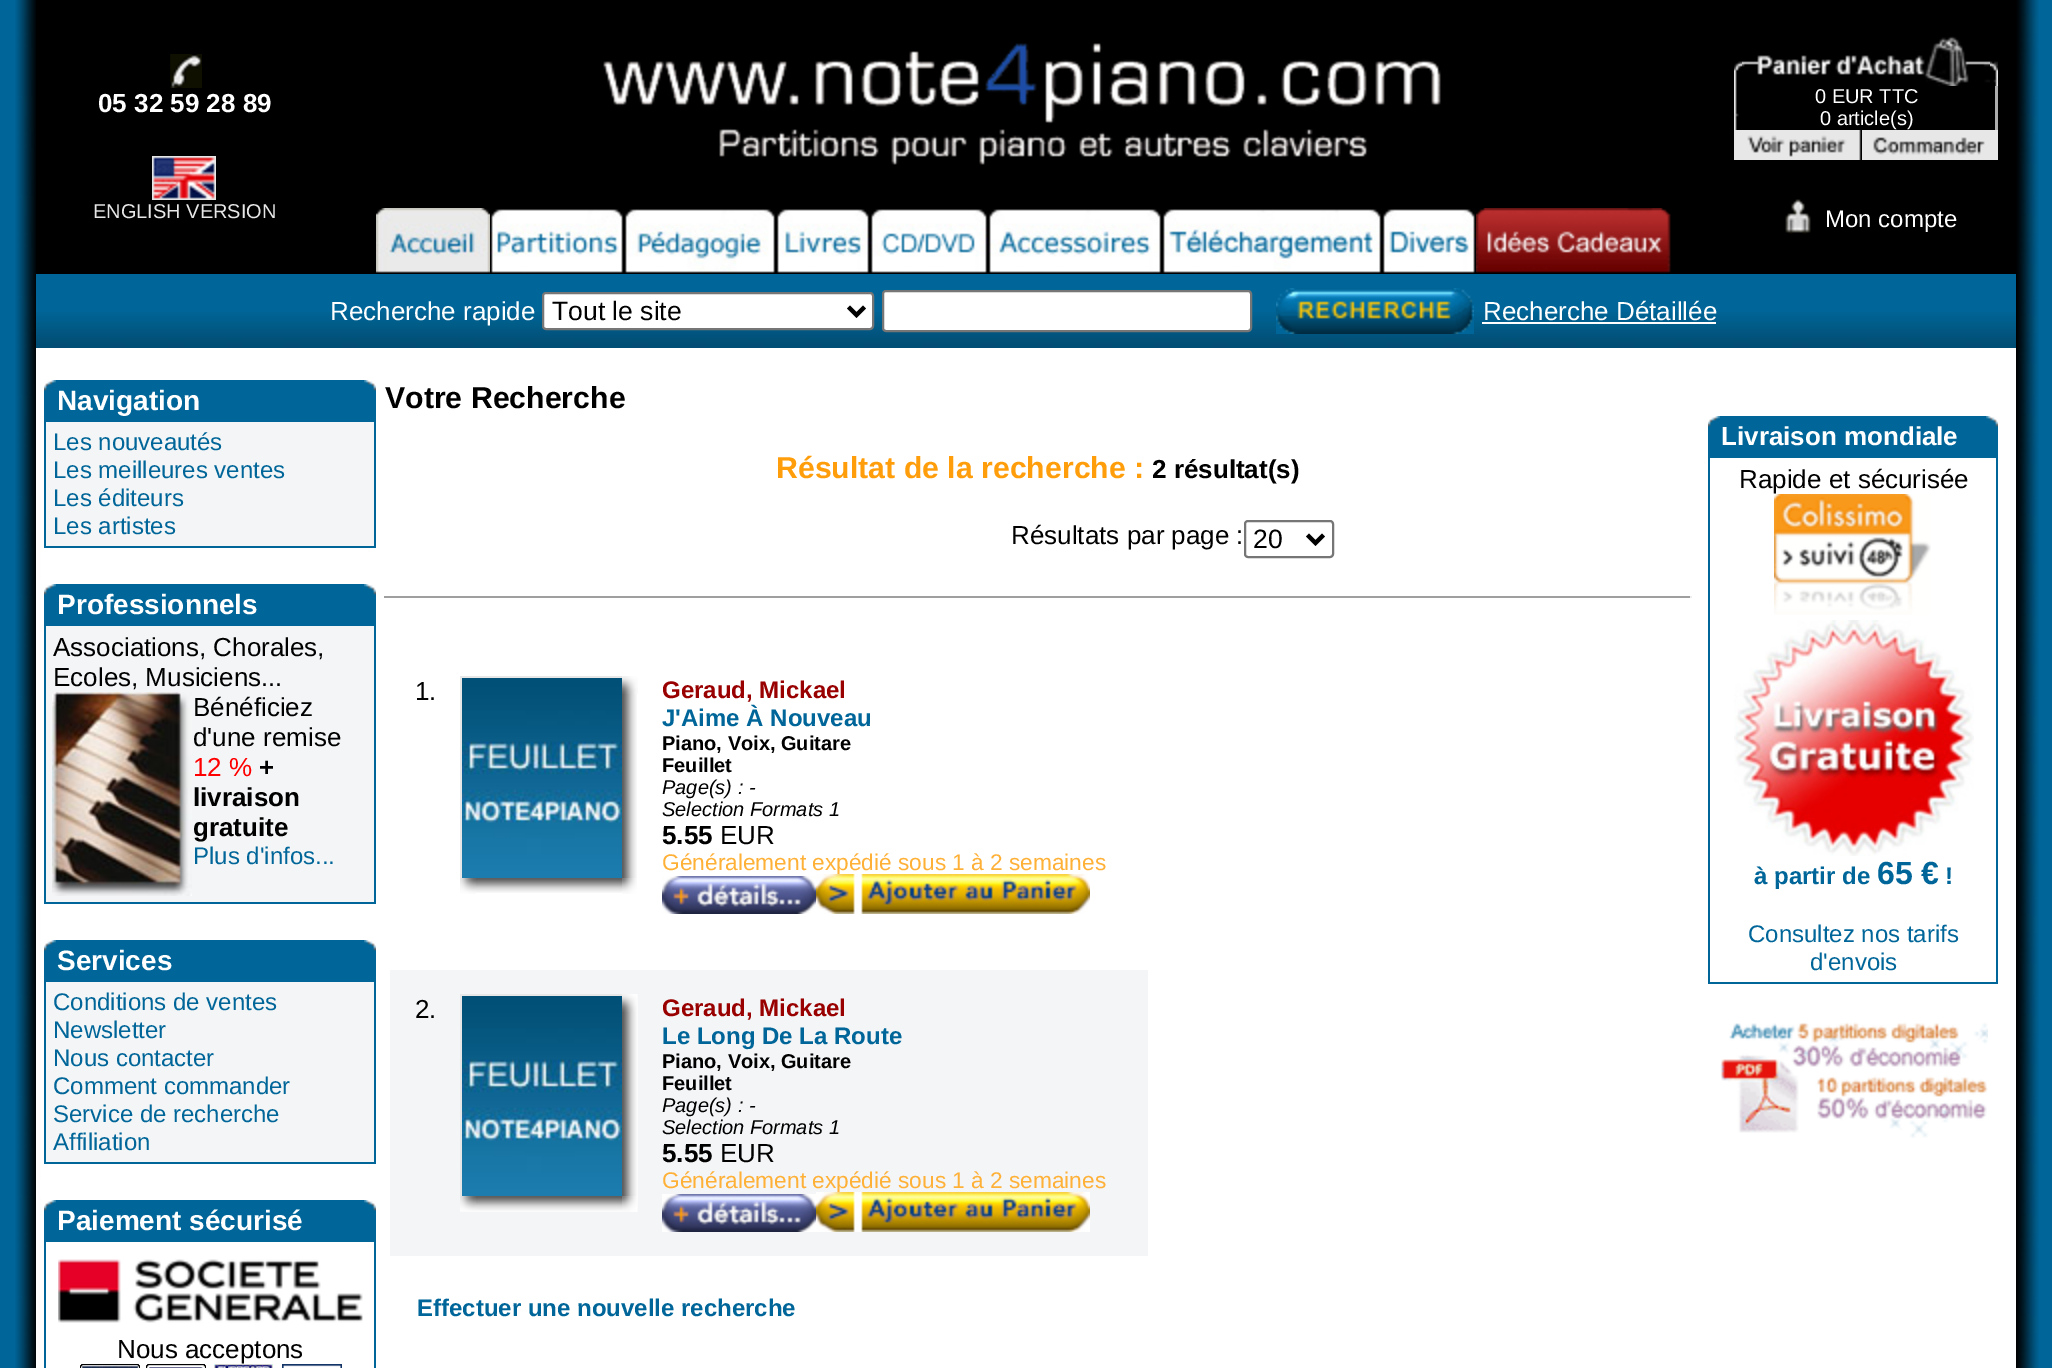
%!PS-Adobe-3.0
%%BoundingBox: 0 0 2052 1368
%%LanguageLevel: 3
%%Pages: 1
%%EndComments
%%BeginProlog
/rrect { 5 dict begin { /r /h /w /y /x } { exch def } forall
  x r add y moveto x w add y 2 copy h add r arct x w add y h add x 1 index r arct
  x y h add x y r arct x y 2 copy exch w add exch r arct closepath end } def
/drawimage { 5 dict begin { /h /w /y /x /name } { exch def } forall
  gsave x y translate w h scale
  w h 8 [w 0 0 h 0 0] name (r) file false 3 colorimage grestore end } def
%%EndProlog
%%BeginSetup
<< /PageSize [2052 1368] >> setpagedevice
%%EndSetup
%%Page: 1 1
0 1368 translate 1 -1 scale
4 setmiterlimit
0 0.4 0.6 setrgbcolor
0 0 2052 1368 rectfill
(images/1.raw) 15 0 2024 1368 drawimage
0 setgray
36 0 1980 274 rectfill
(images/2.raw) 170 54 32 34 drawimage
(images/3.raw) 152 156 64 44 drawimage
(images/4.raw) 603 43 838 122 drawimage
(images/5.raw) 376 208 114 65 drawimage
(images/6.raw) 490 209 133 64 drawimage
(images/7.raw) 624 209 151 64 drawimage
(images/8.raw) 776 209 94 64 drawimage
(images/9.raw) 870 209 118 64 drawimage
(images/10.raw) 988 209 174 64 drawimage
(images/11.raw) 1163 209 219 64 drawimage
(images/12.raw) 1382 209 94 64 drawimage
(images/13.raw) 1476 208 195 65 drawimage
(images/14.raw) 1734 61 8 25 drawimage
(images/15.raw) 1742 36 248 50 drawimage
(images/16.raw) 1990 61 8 25 drawimage
(images/17.raw) 1734 86 5 44 drawimage
0.678 setgray
1995 86 3 44 rectfill
0.906 setgray
1734 130 8 30 rectfill
(images/18.raw) 1742 130 119 30 drawimage
(images/19.raw) 1862 130 128 30 drawimage
1990 130 8 30 rectfill
(images/20.raw) 1785 199 26 35 drawimage
1 setgray
36 348 1980 32 rectfill
0 0.4 0.6 setrgbcolor
36 274 1980 38 rectfill
(images/21.raw) 36 312 1980 36 drawimage
1 setgray
543 293 330 36 3 rrect gsave fill grestore
0.463 setgray
2 setlinewidth
stroke
0 setgray
4 setlinewidth
newpath 848.5 307 moveto 856.5 315 lineto 864.5 307 lineto stroke
1 setgray
883 291 368 40 3 rrect gsave fill grestore
0.463 setgray
2 setlinewidth
stroke
(images/22.raw) 1276 288 198 46 drawimage
1 setgray
1482 322 234 2 rectfill
36 380 2 988 rectfill
0 0.4 0.6 setrgbcolor
44 391 12 29 rectfill
(images/23.raw) 44 380 12 11 drawimage
56 380 308 40 rectfill
364 391 12 29 rectfill
(images/24.raw) 364 380 12 11 drawimage
44 420 332 128 rectfill
0.953 0.961 0.965 setrgbcolor
46 422 328 124 rectfill
0 0.4 0.6 setrgbcolor
44 595 12 29 rectfill
(images/23.raw) 44 584 12 11 drawimage
56 584 308 40 rectfill
364 595 12 29 rectfill
(images/24.raw) 364 584 12 11 drawimage
44 624 332 280 rectfill
0.953 0.961 0.965 setrgbcolor
46 626 328 276 rectfill
(images/25.raw) 52 692 140 204 drawimage
0 0.4 0.6 setrgbcolor
44 951 12 29 rectfill
(images/23.raw) 44 940 12 11 drawimage
56 940 308 40 rectfill
364 951 12 29 rectfill
(images/24.raw) 364 940 12 11 drawimage
44 980 332 184 rectfill
0.953 0.961 0.965 setrgbcolor
46 982 328 180 rectfill
0 0.4 0.6 setrgbcolor
44 1211 12 29 rectfill
(images/23.raw) 44 1200 12 11 drawimage
56 1200 308 40 rectfill
364 1211 12 29 rectfill
(images/24.raw) 364 1200 12 11 drawimage
44 1240 332 128 rectfill
1 setgray
46 1242 328 126 rectfill
(images/26.raw) 58 1259 305 64 drawimage
(images/27.raw) 80 1364 60 4 drawimage
(images/28.raw) 146 1364 60 4 drawimage
(images/29.raw) 214 1364 59 4 drawimage
(images/30.raw) 282 1364 60 4 drawimage
0.463 setgray
1245 521 88 36 3 rrect stroke
0 setgray
4 setlinewidth
newpath 1307.5 535 moveto 1315.5 543 lineto 1323.5 535 lineto stroke
0.624 setgray
384 596 1308 2 rectfill
0.933 setgray
1690 596 2 2 rectfill
0.906 setgray
460 676 162 2 rectfill
460 676 2 202 rectfill
(images/31.raw) 462 678 160 200 drawimage
(images/32.raw) 622 694 15 184 drawimage
(images/33.raw) 622 676 16 18 drawimage
(images/34.raw) 476 878 146 15 drawimage
(images/35.raw) 460 878 16 16 drawimage
(images/36.raw) 622 878 15 16 drawimage
(images/37.raw) 662 876 154 38 drawimage
0.953 0.961 0.965 setrgbcolor
390 970 758 286 rectfill
0.906 setgray
460 994 162 2 rectfill
460 994 2 202 rectfill
(images/31.raw) 462 996 160 200 drawimage
(images/39.raw) 622 994 16 202 drawimage
(images/40.raw) 622 994 15 18 drawimage
(images/41.raw) 460 1196 162 16 drawimage
(images/42.raw) 460 1196 16 15 drawimage
(images/43.raw) 637 1196 1 16 drawimage
(images/36.raw) 622 1196 15 16 drawimage
(images/37.raw) 662 1194 154 38 drawimage
1 setgray
2014 380 2 988 rectfill
0 0.4 0.6 setrgbcolor
1708 427 12 29 rectfill
(images/23.raw) 1708 416 12 11 drawimage
1720 416 266 40 rectfill
1986 427 12 29 rectfill
(images/24.raw) 1986 416 12 11 drawimage
1708 456 290 528 rectfill
1 setgray
1710 458 286 524 rectfill
(images/44.raw) 1774 494 157 121 drawimage
(images/45.raw) 1734 620 240 236 drawimage
(images/46.raw) 1720 1022 268 116 drawimage
/LiberationSans-Bold [26 0 0 -26 0 0] selectfont
98 112 moveto (05 32 59 28 89) show
/LiberationSans-Regular [20 0 0 -20 0 0] selectfont
0.906 setgray
93 218 moveto (ENGLISH VERSION) show
1 setgray
1815 103 moveto (0 EUR TTC) show
1820 125 moveto (0 article\(s\)) show
/LiberationSans-Regular [24 0 0 -24 0 0] selectfont
1825 227 moveto (Mon compte) show
/LiberationSans-Regular [26 0 0 -26 0 0] selectfont
330 320 moveto (Recherche rapide) show
/LiberationSans-Regular [26.5 0 0 -26.5 0 0] selectfont
0 setgray
552 320 moveto (Tout le site) show
/LiberationSans-Regular [26 0 0 -26 0 0] selectfont
1 setgray
1483 320 moveto (Recherche Détaillée) show
/LiberationSans-Bold [28 0 0 -28 0 0] selectfont
57 410 moveto (Navigation) show
/LiberationSans-Regular [24 0 0 -24 0 0] selectfont
0 0.4 0.6 setrgbcolor
53 450 moveto (Les nouveautés) show
53 478 moveto (Les meilleures ventes) show
53 506 moveto (Les éditeurs) show
53 534 moveto (Les artistes) show
/LiberationSans-Bold [28 0 0 -28 0 0] selectfont
1 setgray
57 614 moveto (Professionnels) show
/LiberationSans-Regular [26 0 0 -26 0 0] selectfont
0 setgray
53 656 moveto (Associations, Chorales,) show
53 686 moveto (Ecoles, Musiciens...) show
193 716 moveto (Bénéficiez) show
193 746 moveto (d'une remise) show
1 0 0 setrgbcolor
193 776 moveto (12 %) show
/LiberationSans-Bold [26 0 0 -26 0 0] selectfont
0 setgray
259 776 moveto (+) show
193 806 moveto (livraison) show
193 836 moveto (gratuite) show
/LiberationSans-Regular [24 0 0 -24 0 0] selectfont
0 0.4 0.6 setrgbcolor
193 864 moveto (Plus d'infos...) show
/LiberationSans-Bold [28 0 0 -28 0 0] selectfont
1 setgray
57 970 moveto (Services) show
/LiberationSans-Regular [24 0 0 -24 0 0] selectfont
0 0.4 0.6 setrgbcolor
53 1010 moveto (Conditions de ventes) show
53 1038 moveto (Newsletter) show
53 1066 moveto (Nous contacter) show
53 1094 moveto (Comment commander) show
53 1122 moveto (Service de recherche) show
53 1150 moveto (Affiliation) show
/LiberationSans-Bold [28 0 0 -28 0 0] selectfont
1 setgray
57 1230 moveto (Paiement sécurisé) show
/LiberationSans-Regular [26 0 0 -26 0 0] selectfont
0 setgray
117 1358 moveto (Nous acceptons) show
/LiberationSans-Bold [30.25 0 0 -30.25 0 0] selectfont
385 408 moveto (Votre Recherche) show
1 0.62 0.039 setrgbcolor
776 478 moveto (Résultat de la recherche :) show
/LiberationSans-Bold [26 0 0 -26 0 0] selectfont
0 setgray
1152 478 moveto (2 résultat\(s\)) show
/LiberationSans-Regular [26 0 0 -26 0 0] selectfont
1011 544 moveto (Résultats par page :) show
/LiberationSans-Regular [26.5 0 0 -26.5 0 0] selectfont
1253 548 moveto (20) show
/LiberationSans-Regular [26 0 0 -26 0 0] selectfont
415 700 moveto (1.) show
/LiberationSans-Bold [24 0 0 -24 0 0] selectfont
0.6 0 0 setrgbcolor
662 698 moveto (Geraud, Mickael) show
0 0.4 0.6 setrgbcolor
662 726 moveto (J'Aime À Nouveau) show
/LiberationSans-Bold [20 0 0 -20 0 0] selectfont
0 setgray
662 750 moveto (Piano, Voix, Guitare) show
662 772 moveto (Feuillet) show
/LiberationSans-Italic [20 0 0 -20 0 0] selectfont
662 794 moveto (Page\(s\) : -) show
662 816 moveto (Selection Formats 1) show
/LiberationSans-Bold [26 0 0 -26 0 0] selectfont
662 844 moveto (5.55) show
/LiberationSans-Regular [26 0 0 -26 0 0] selectfont
720 844 moveto (EUR) show
/LiberationSans-Regular [22.7 0 0 -22.7 0 0] selectfont
1 0.694 0.216 setrgbcolor
662 870 moveto (Généralement expédié sous 1 à 2 semaines) show
(images/38.raw) 816 874 274 40 drawimage
/LiberationSans-Regular [26 0 0 -26 0 0] selectfont
0 setgray
415 1018 moveto (2.) show
/LiberationSans-Bold [24 0 0 -24 0 0] selectfont
0.6 0 0 setrgbcolor
662 1016 moveto (Geraud, Mickael) show
0 0.4 0.6 setrgbcolor
662 1044 moveto (Le Long De La Route) show
/LiberationSans-Bold [20 0 0 -20 0 0] selectfont
0 setgray
662 1068 moveto (Piano, Voix, Guitare) show
662 1090 moveto (Feuillet) show
/LiberationSans-Italic [20 0 0 -20 0 0] selectfont
662 1112 moveto (Page\(s\) : -) show
662 1134 moveto (Selection Formats 1) show
/LiberationSans-Bold [26 0 0 -26 0 0] selectfont
662 1162 moveto (5.55) show
/LiberationSans-Regular [26 0 0 -26 0 0] selectfont
720 1162 moveto (EUR) show
/LiberationSans-Regular [22.7 0 0 -22.7 0 0] selectfont
1 0.694 0.216 setrgbcolor
662 1188 moveto (Généralement expédié sous 1 à 2 semaines) show
(images/38.raw) 816 1192 274 40 drawimage
/LiberationSans-Bold [24 0 0 -24 0 0] selectfont
0 0.4 0.6 setrgbcolor
417 1316 moveto (Effectuer une nouvelle recherche) show
/LiberationSans-Bold [26 0 0 -26 0 0] selectfont
1 setgray
1721 445 moveto (Livraison mondiale) show
/LiberationSans-Regular [26 0 0 -26 0 0] selectfont
0 setgray
1739 488 moveto (Rapide et sécurisée) show
/LiberationSans-Bold [24 0 0 -24 0 0] selectfont
0 0.4 0.6 setrgbcolor
1754 884 moveto (à partir de) show
/LiberationSans-Bold [32 0 0 -32 0 0] selectfont
1877 884 moveto (65 €) show
/LiberationSans-Bold [24 0 0 -24 0 0] selectfont
1945 884 moveto (!) show
/LiberationSans-Regular [24 0 0 -24 0 0] selectfont
1748 942 moveto (Consultez nos tarifs) show
1810 970 moveto (d'envois) show
showpage
%%EOF
